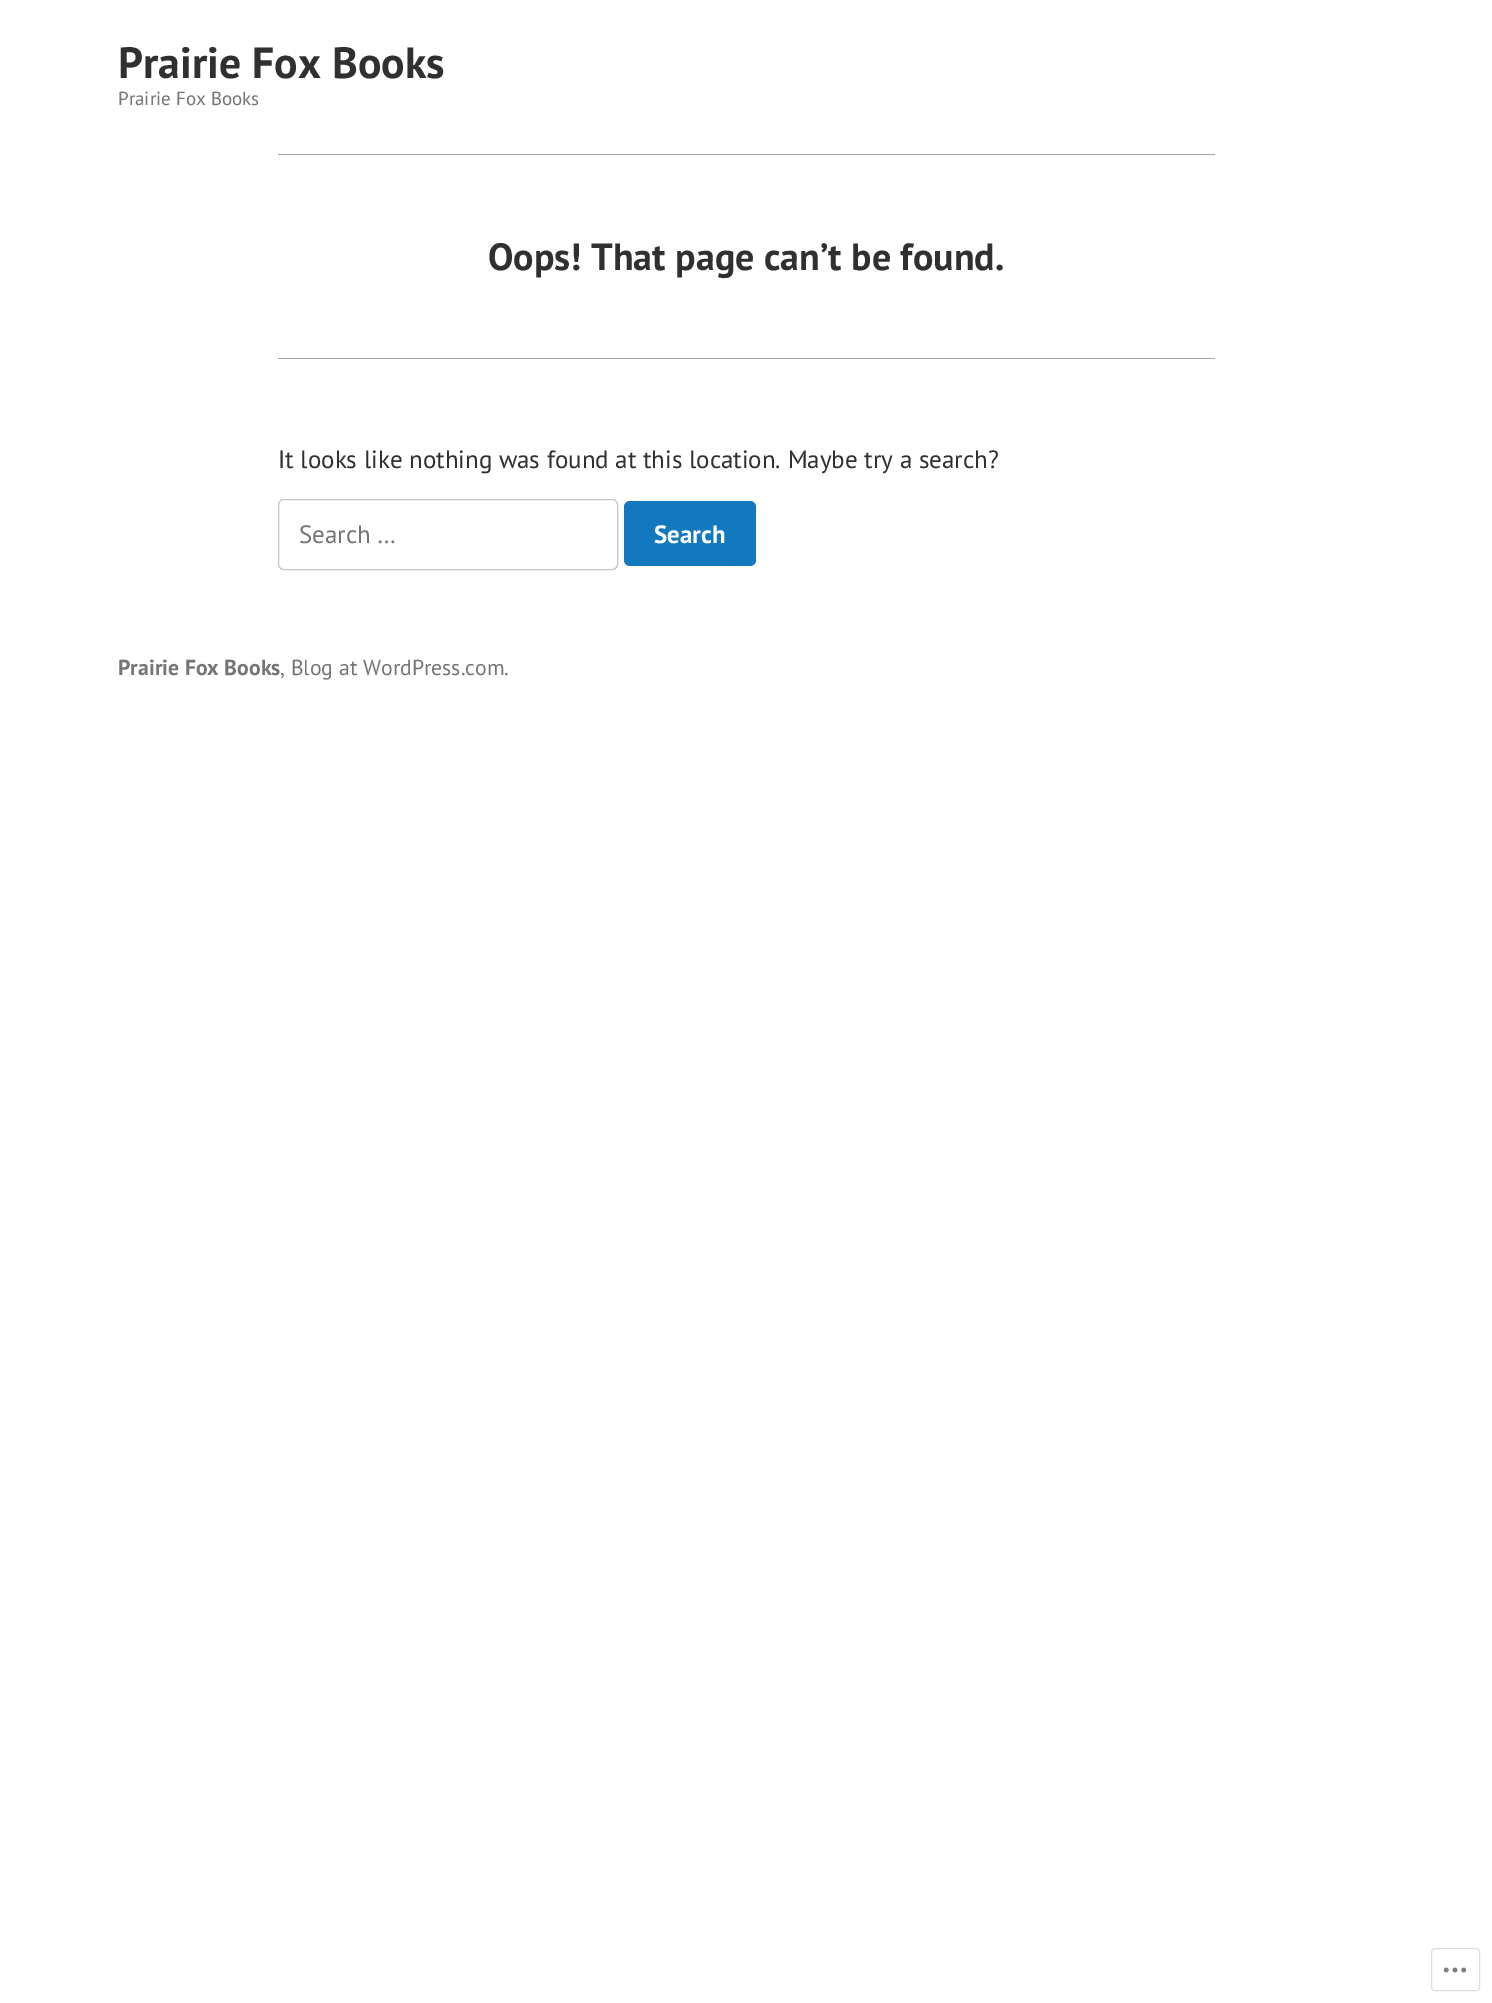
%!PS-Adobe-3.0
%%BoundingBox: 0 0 1492 2003
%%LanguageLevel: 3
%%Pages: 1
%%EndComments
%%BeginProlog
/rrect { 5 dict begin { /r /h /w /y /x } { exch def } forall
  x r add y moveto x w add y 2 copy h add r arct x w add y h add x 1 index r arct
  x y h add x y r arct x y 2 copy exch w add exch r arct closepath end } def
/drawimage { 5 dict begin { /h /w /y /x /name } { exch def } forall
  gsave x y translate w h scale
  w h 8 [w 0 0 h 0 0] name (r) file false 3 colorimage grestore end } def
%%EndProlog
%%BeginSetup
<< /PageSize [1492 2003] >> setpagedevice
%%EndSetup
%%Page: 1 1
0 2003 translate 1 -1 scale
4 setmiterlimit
1 setgray
0 0 1492 2003 rectfill
0.647 setgray
278 154 937 1 rectfill
278 358 937 1 rectfill
0.773 setgray
278.5 499.5 339 70 5.5 rrect stroke
0.071 0.475 0.745 setrgbcolor
624 501 132 65 6 rrect fill
0.867 0.867 0.875 setrgbcolor
1431.5 1948.5 48 42 3.5 rrect stroke
(images/1.raw) 1443 1967 24 6 drawimage
/PTSans-Bold [43.75 0 0 -43.75 0 0] selectfont
0.188 setgray
118 78 moveto (Prairie Fox Books) show
/PTSans-Regular [19 0 0 -19 0 0] selectfont
0.459 setgray
118 105 moveto (Prairie Fox Books) show
/PTSans-Bold [38 0 0 -38 0 0] selectfont
0.188 setgray
488 270 moveto (Oops! That page can’t be found.) show
/PTSans-Regular [25 0 0 -25 0 0] selectfont
278 468 moveto (It looks like nothing was found at this location. Maybe try a search?) show
0.459 setgray
299 543 moveto (Search …) show
/PTSans-Bold [25 0 0 -25 0 0] selectfont
1 setgray
654 543 moveto (Search) show
/PTSans-Bold [21.75 0 0 -21.75 0 0] selectfont
0.459 setgray
118 675 moveto (Prairie Fox Books) show
/PTSans-Regular [21.75 0 0 -21.75 0 0] selectfont
280 675 moveto (, Blog at WordPress.com.) show
showpage
%%EOF
